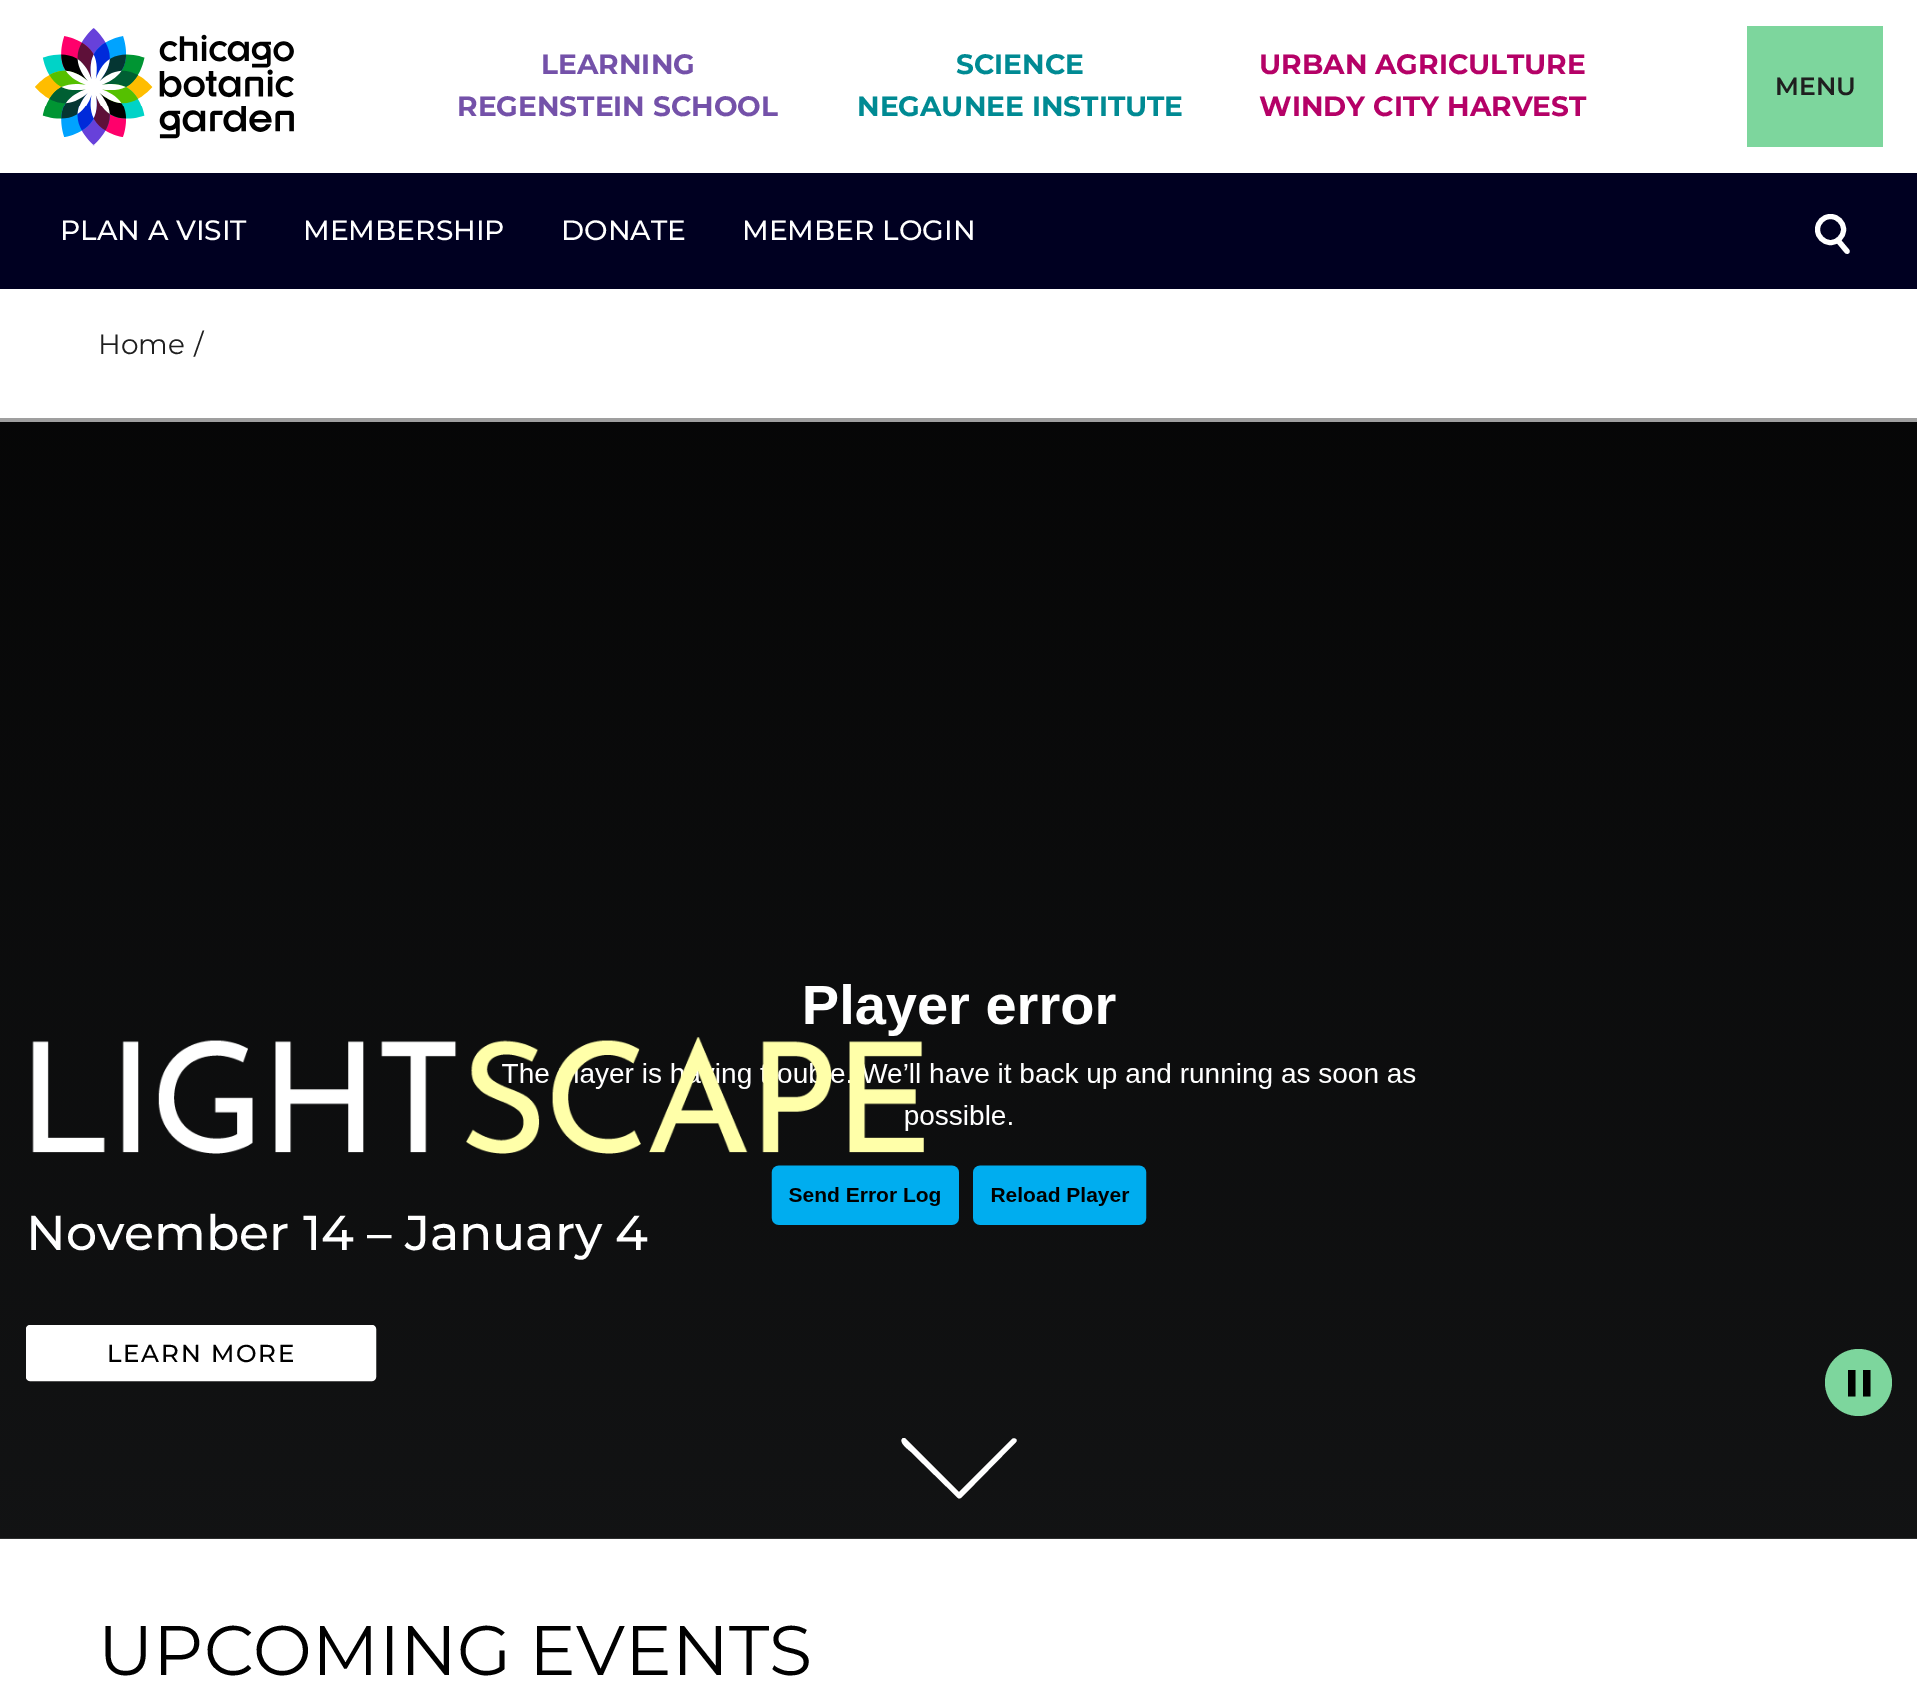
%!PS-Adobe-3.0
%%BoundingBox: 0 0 1917 1704
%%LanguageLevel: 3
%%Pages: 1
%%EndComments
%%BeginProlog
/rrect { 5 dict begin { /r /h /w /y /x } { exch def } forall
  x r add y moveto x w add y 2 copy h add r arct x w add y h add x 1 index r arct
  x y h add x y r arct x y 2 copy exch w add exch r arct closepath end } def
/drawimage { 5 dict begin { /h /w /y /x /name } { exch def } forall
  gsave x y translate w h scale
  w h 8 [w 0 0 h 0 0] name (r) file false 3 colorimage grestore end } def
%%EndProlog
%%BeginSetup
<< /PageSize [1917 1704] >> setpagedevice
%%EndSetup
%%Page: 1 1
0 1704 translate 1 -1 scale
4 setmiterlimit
1 setgray
0 0 1917 1704 rectfill
(images/1.raw) 35 28 259 118 drawimage
0.49 0.839 0.616 setrgbcolor
1747 26 136 121 rectfill
0 0 0.129 setrgbcolor
0 173 1917 116 rectfill
1 setgray
newpath 1826.5 226.5 moveto 1827.5 225.5 1829 225.5 1830 227 curveto 1849 249.5 lineto 1850 250.5 1850 252.5 1848.5 253.5 curveto 1847.5 254 1846 254 1845 253 curveto 1826 230 lineto 1825 229 1825 227.5 1826.5 226.5 curveto closepath fill
0 0 0.129 setrgbcolor
newpath 1830.5 229.5 13 0 360 arc closepath gsave fill grestore
1 setgray
5 setlinewidth
stroke
0 setgray
0 422 1917 1116 rectfill
0.624 setgray
newpath -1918 418 moveto 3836 418 lineto 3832 422 lineto -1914 422 lineto closepath fill
(images/2.raw) 0 422 1917 1117 drawimage
0.49 0.839 0.616 setrgbcolor
newpath 1858.5 1382.5 33.5 0 360 arc closepath fill
0 setgray
newpath 1863 1370 moveto 1870.5 1370 lineto 1870.5 1396.5 lineto 1863 1396.5 lineto closepath 1848 1370 moveto 1855.5 1370 lineto 1855.5 1396.5 lineto 1848 1396.5 lineto closepath fill
(images/3.raw) 32 1037 892 117 drawimage
1 setgray
27 1326 348 54 3 rrect gsave fill grestore
2 setlinewidth
stroke
newpath 1012 1439 moveto 959 1492 lineto 905 1438 lineto 904 1438 902 1438 902 1439 curveto 899 1443 909 1450 911 1452 curveto 958 1498 lineto 959 1499 960 1498 961 1498 curveto 1016 1442 lineto 1018 1440 1015 1437 1012 1439 curveto closepath fill
/Montserrat-Bold [28 0 0 -28 0 0] selectfont
0.455 0.318 0.663 setrgbcolor
541 74 moveto (LEARNING) show
457 116 moveto (REGENSTEIN SCHOOL) show
0 0.541 0.576 setrgbcolor
956 74 moveto (SCIENCE) show
857 116 moveto (NEGAUNEE INSTITUTE) show
0.71 0.004 0.404 setrgbcolor
1259 74 moveto (URBAN AGRICULTURE) show
1259 116 moveto (WINDY CITY HARVEST) show
/Montserrat-SemiBold [25 0 0 -25 0 0] selectfont
0.122 setgray
1775 95 moveto (MENU) show
/Montserrat-Medium [28 0 0 -28 0 0] selectfont
1 setgray
60 240 moveto (PLAN A VISIT) show
303 240 moveto (MEMBERSHIP) show
561 240 moveto (DONATE) show
742 240 moveto (MEMBER LOGIN) show
/Montserrat-Regular [28 0 0 -28 0 0] selectfont
0.122 setgray
98 354 moveto (Home) show
194 354 moveto (/) show
/Montserrat-Medium [49 0 0 -49 0 0] selectfont
1 setgray
26 1250 moveto (November 14 – January 4) show
/Montserrat-Medium [24.5 0 0 -24.5 0 0] selectfont
0 setgray
107 1362 moveto 1.75 0 (LEARN MORE) ashow
/Montserrat-Regular [70 0 0 -70 0 0] selectfont
98 1675 moveto (UPCOMING EVENTS) show
showpage
%%EOF
